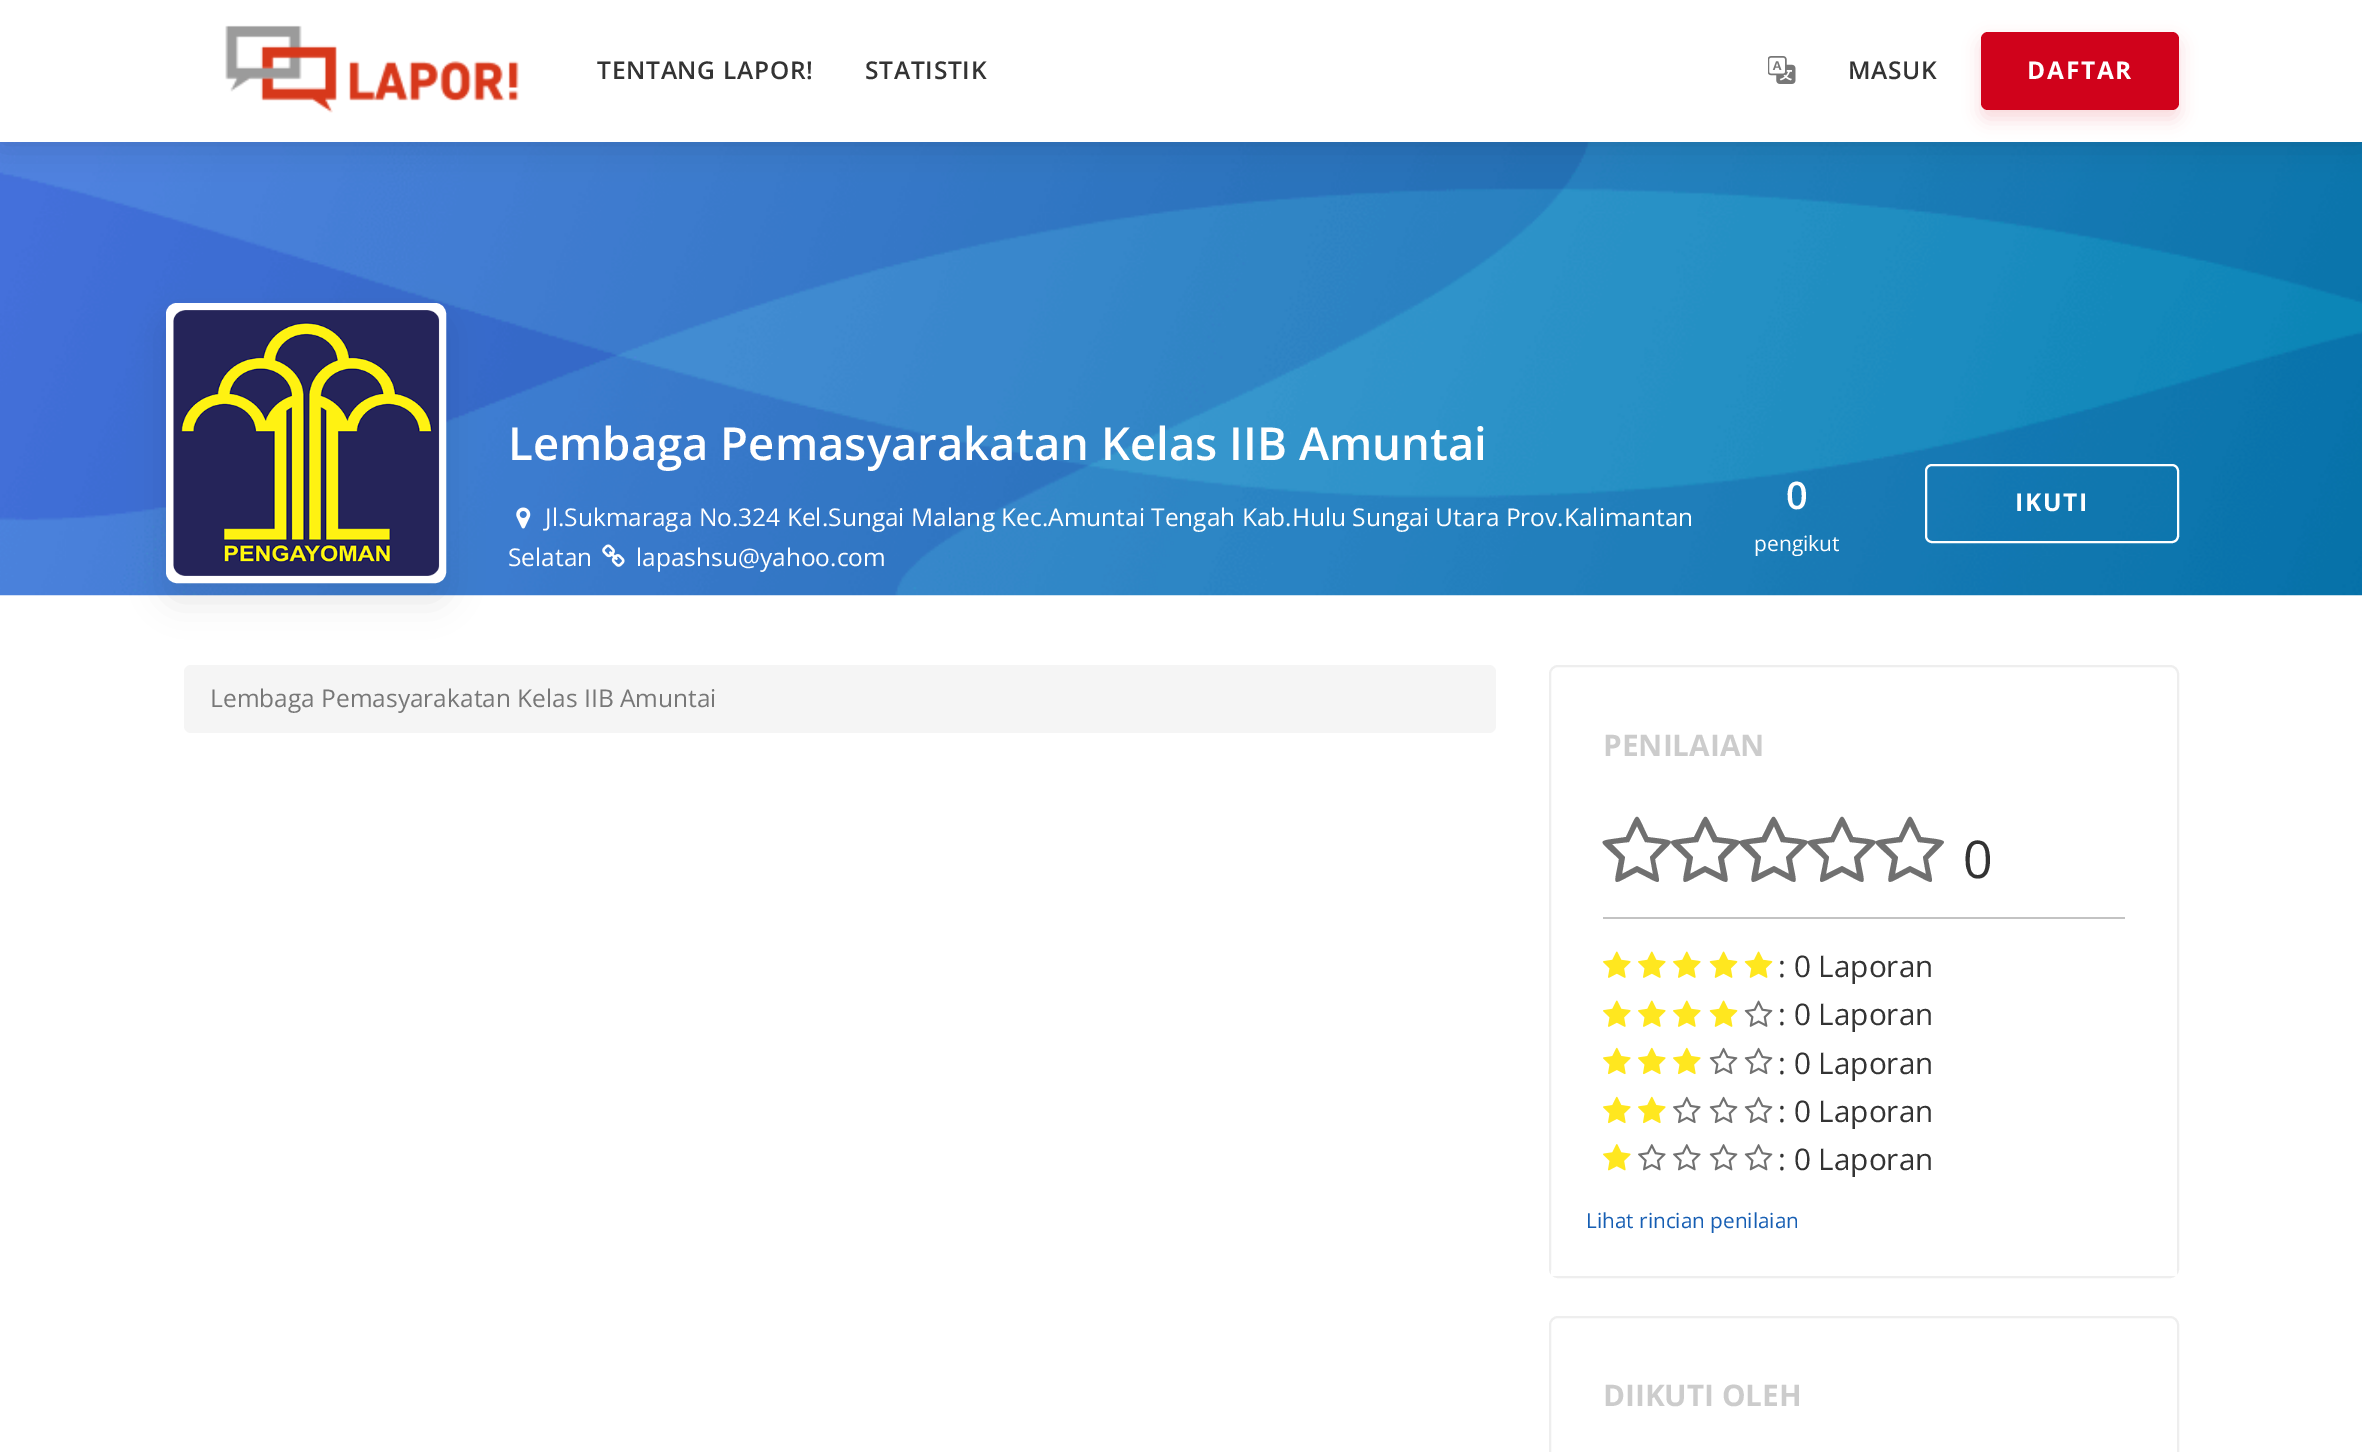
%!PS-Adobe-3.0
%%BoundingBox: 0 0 2362 1452
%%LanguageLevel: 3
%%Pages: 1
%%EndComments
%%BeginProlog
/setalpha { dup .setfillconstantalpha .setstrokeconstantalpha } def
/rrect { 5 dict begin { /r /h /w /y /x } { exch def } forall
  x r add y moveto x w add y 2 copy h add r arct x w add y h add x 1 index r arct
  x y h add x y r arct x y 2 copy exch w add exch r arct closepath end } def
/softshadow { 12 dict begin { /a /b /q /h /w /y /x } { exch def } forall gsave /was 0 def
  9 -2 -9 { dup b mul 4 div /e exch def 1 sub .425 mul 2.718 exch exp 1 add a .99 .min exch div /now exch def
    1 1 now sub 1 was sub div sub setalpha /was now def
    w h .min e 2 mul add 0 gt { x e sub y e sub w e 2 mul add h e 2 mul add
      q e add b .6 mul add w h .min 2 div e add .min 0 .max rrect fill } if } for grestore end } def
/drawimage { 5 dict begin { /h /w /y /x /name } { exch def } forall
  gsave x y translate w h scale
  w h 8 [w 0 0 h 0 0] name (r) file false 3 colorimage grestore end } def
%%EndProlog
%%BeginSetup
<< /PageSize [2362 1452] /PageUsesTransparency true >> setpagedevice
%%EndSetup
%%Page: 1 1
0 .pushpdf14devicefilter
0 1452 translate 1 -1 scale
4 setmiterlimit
1 setgray
0 0 2362 1452 rectfill
(images/3.raw) 0 142 2362 454 drawimage
0 setgray
0 0 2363 142 0 17.5 0.15 softshadow
1 setgray
0 0 2362 142 rectfill
(images/1.raw) 225 25 294 88 drawimage
(images/2.raw) 1768 56 28 28 drawimage
0.816 0.008 0.106 setrgbcolor
1981 40 198 79 7 9 0.15 softshadow
1981 32 198 78 7 rrect fill
0 setgray
166 320 280 280 11 17.5 0.1 softshadow
1 setgray
169.5 306.5 273 273 7.5 rrect gsave fill grestore
7 setlinewidth
stroke
(images/4.raw) 173 310 267 266 drawimage
(images/5.raw) 516 507 15 22 drawimage
(images/6.raw) 602 544 23 23 drawimage
2 setlinewidth
1926 465 252 77 6 rrect stroke
0.961 setgray
184 665 1312 68 7 rrect fill
0.933 setgray
1550 666 628 611 8 rrect stroke
0.765 setgray
1603 917 522 2 rectfill
0.439 setgray
newpath 1650 857 moveto 1662 844 lineto 1645 842 lineto 1637 826 lineto 1629 842 lineto 1612 844 lineto 1625 857 lineto 1622 874 lineto 1637 866 lineto 1653 874 lineto closepath 1671 842 moveto 1671 844 1658 856 1655 859 curveto 1660 888 1665 886 1637 872 curveto 1610 886 1614 888 1619 859 curveto 1597 838 1595 842 1626 837 curveto 1639 810 1635 810 1648 837 curveto 1652 838 1671 839 1671 842 curveto closepath fill
newpath 1718 857 moveto 1730 844 lineto 1713 842 lineto 1705 826 lineto 1698 842 lineto 1680 844 lineto 1693 857 lineto 1690 874 lineto 1705 866 lineto 1721 874 lineto closepath 1740 842 moveto 1740 844 1726 856 1724 859 curveto 1729 888 1733 886 1705 872 curveto 1678 886 1682 888 1687 859 curveto 1666 838 1663 842 1694 837 curveto 1708 810 1703 810 1717 837 curveto 1720 838 1740 839 1740 842 curveto closepath fill
0.7 setalpha
0.2 setgray
newpath 1786 857 moveto 1799 844 lineto 1781 842 lineto 1774 826 lineto 1766 842 lineto 1749 844 lineto 1761 857 lineto 1758 874 lineto 1774 866 lineto 1789 874 lineto closepath 1808 842 moveto 1808 844 1794 856 1792 859 curveto 1797 888 1801 886 1774 872 curveto 1746 886 1750 888 1755 859 curveto 1734 838 1732 842 1762 837 curveto 1776 810 1771 810 1785 837 curveto 1788 838 1808 839 1808 842 curveto closepath fill
1 setalpha
0.439 setgray
newpath 1854 857 moveto 1867 844 lineto 1850 842 lineto 1842 826 lineto 1834 842 lineto 1817 844 lineto 1829 857 lineto 1826 874 lineto 1842 866 lineto 1857 874 lineto closepath 1876 842 moveto 1876 844 1862 856 1860 859 curveto 1865 888 1869 886 1842 872 curveto 1814 886 1819 888 1824 859 curveto 1802 838 1800 842 1831 837 curveto 1844 810 1840 810 1853 837 curveto 1857 838 1876 839 1876 842 curveto closepath fill
newpath 1923 857 moveto 1935 844 lineto 1918 842 lineto 1910 826 lineto 1902 842 lineto 1885 844 lineto 1898 857 lineto 1895 874 lineto 1910 866 lineto 1926 874 lineto closepath 1944 842 moveto 1944 844 1931 856 1928 859 curveto 1933 888 1938 886 1910 872 curveto 1883 886 1887 888 1892 859 curveto 1870 838 1868 842 1899 837 curveto 1912 810 1908 810 1921 837 curveto 1925 838 1944 839 1944 842 curveto closepath fill
(images/7.raw) 1603 951 28 27 drawimage
(images/7.raw) 1638 951 28 27 drawimage
(images/7.raw) 1673 951 28 27 drawimage
(images/8.raw) 1709 951 29 27 drawimage
(images/8.raw) 1744 951 29 27 drawimage
(images/7.raw) 1603 1000 28 27 drawimage
(images/7.raw) 1638 1000 28 27 drawimage
(images/7.raw) 1673 1000 28 27 drawimage
(images/8.raw) 1709 1000 29 27 drawimage
(images/9.raw) 1744 1000 29 27 drawimage
(images/10.raw) 1603 1047 28 28 drawimage
(images/10.raw) 1638 1047 28 28 drawimage
(images/10.raw) 1673 1047 28 28 drawimage
(images/11.raw) 1709 1047 29 28 drawimage
(images/11.raw) 1744 1047 29 28 drawimage
(images/10.raw) 1603 1096 28 28 drawimage
(images/10.raw) 1638 1096 28 28 drawimage
(images/12.raw) 1673 1096 28 28 drawimage
(images/11.raw) 1709 1096 29 28 drawimage
(images/11.raw) 1744 1096 29 28 drawimage
(images/13.raw) 1603 1144 28 27 drawimage
(images/14.raw) 1638 1144 28 27 drawimage
(images/14.raw) 1673 1144 28 27 drawimage
(images/15.raw) 1709 1144 29 27 drawimage
(images/15.raw) 1744 1144 29 27 drawimage
1 setgray
1551 1270 626 6 rectfill
0.933 setgray
1550 1317 628 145 8 rrect stroke
/OpenSans-SemiBold [24.5 0 0 -24.5 0 0] selectfont
0.2 setgray
597 79 moveto 0.75 0 (TENTANG LAPOR!) ashow
865 79 moveto 0.75 0 (STATISTIK) ashow
1848 79 moveto 0.75 0 (MASUK) ashow
/OpenSans-Bold [24.5 0 0 -24.5 0 0] selectfont
1 setgray
2027 79 moveto 1.75 0 (DAFTAR) ashow
/OpenSans-SemiBold [45.5 0 0 -45.5 0 0] selectfont
508 460 moveto (Lembaga Pemasyarakatan Kelas IIB Amuntai) show
/OpenSans-Regular [24.5 0 0 -24.5 0 0] selectfont
545 526 moveto (Jl.Sukmaraga No.324 Kel.Sungai Malang Kec.Amuntai Tengah Kab.Hulu Sungai Utara Prov.Kalimantan) show
508 566 moveto (Selatan) show
636 566 moveto (lapashsu@yahoo.com) show
/OpenSans-SemiBold [38 0 0 -38 0 0] selectfont
1786 509 moveto (0) show
/OpenSans-Regular [21 0 0 -21 0 0] selectfont
1754 551 moveto (pengikut) show
/OpenSans-Bold [24.5 0 0 -24.5 0 0] selectfont
2015 511 moveto 1.75 0 (IKUTI) ashow
/OpenSans-Regular [24.5 0 0 -24.5 0 0] selectfont
0.467 setgray
210 707 moveto (Lembaga Pemasyarakatan Kelas IIB Amuntai) show
/OpenSans-Bold [29.75 0 0 -29.75 0 0] selectfont
0.8 setgray
1603 756 moveto (PENILAIAN) show
/OpenSans-Regular [52 0 0 -52 0 0] selectfont
0.2 setgray
1963 878 moveto (0) show
/OpenSans-Regular [29.75 0 0 -29.75 0 0] selectfont
1778 977 moveto (: 0 Laporan) show
1778 1025 moveto (: 0 Laporan) show
1778 1074 moveto (: 0 Laporan) show
1778 1122 moveto (: 0 Laporan) show
1778 1170 moveto (: 0 Laporan) show
/OpenSans-Regular [20.75 0 0 -20.75 0 0] selectfont
0.086 0.369 0.702 setrgbcolor
1586 1228 moveto (Lihat rincian penilaian) show
/OpenSans-Bold [29.75 0 0 -29.75 0 0] selectfont
0.8 setgray
1603 1406 moveto (DIIKUTI OLEH) show
.poppdf14devicefilter showpage
%%EOF
